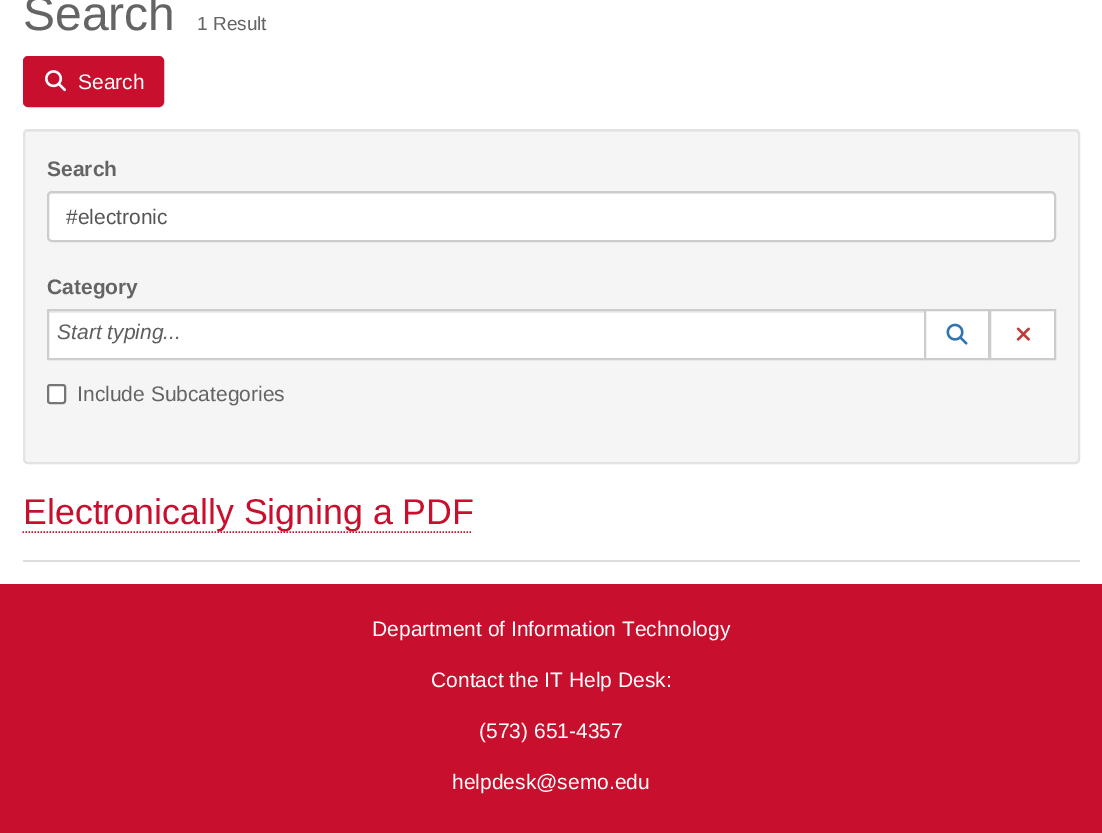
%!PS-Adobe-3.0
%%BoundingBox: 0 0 1102 833
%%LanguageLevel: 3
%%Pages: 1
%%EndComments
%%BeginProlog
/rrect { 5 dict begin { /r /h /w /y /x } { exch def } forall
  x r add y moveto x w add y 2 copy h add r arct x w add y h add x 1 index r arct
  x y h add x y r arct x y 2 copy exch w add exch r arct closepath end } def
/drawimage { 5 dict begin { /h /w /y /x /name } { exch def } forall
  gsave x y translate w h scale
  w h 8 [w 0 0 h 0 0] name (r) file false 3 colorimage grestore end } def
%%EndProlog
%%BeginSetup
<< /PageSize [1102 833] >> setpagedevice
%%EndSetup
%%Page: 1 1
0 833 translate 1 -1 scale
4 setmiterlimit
1 setgray
0 0 1102 833 rectfill
0.784 0.063 0.18 setrgbcolor
24 57 139 49 4 rrect gsave fill grestore
2 setlinewidth
stroke
(images/1.raw) 45 70 21 22 drawimage
0.961 setgray
23 129 1057 335 5 rrect fill
0.914 setgray
newpath 27 132 moveto 1076 132 lineto 1077 132 1078 133 1078 135 curveto 1078 461 lineto 1079 461 1079 460 1079 459 curveto 1079 134 lineto 1079 132 1078 131 1076 131 curveto 27 131 lineto 25 131 24 132 24 134 curveto 24 135 lineto 24 133 25 132 27 132 curveto closepath fill
0.89 setgray
24 130 1055 333 4 rrect stroke
1 setgray
47 191 1009 51 5 rrect fill
0.925 setgray
newpath 51 194 moveto 1052 194 lineto 1053 194 1054 195 1054 196 curveto 1054 239 lineto 1055 238 lineto 1055 195 lineto 1055 193 1054 192 1052 192 curveto 51 192 lineto 49 192 48 194 48 196 curveto 48 195 49 194 51 194 curveto closepath fill
0.8 setgray
48 192 1007 49 4 rrect stroke
1 setgray
49 313 875 45 rectfill
0.925 setgray
48 311 876 2 rectfill
0.804 setgray
48 310 877 49 rectstroke
1 setgray
newpath 925 310 moveto 989 310 lineto 989 359 lineto 925 359 lineto closepath gsave fill grestore
0.8 setgray
stroke
(images/2.raw) 946 323 22 22 drawimage
1 setgray
newpath 990 310 moveto 1055 310 lineto 1055 359 lineto 990 359 lineto closepath gsave fill grestore
0.8 setgray
stroke
(images/3.raw) 1016 327 14 14 drawimage
1 setgray
48 385 17 18 2 rrect gsave fill grestore
0.463 setgray
stroke
0.867 setgray
23 560 1057 2 rectfill
0.784 0.063 0.18 setrgbcolor
1.5 setlinewidth
[1.5 1.5] 0 setdash
newpath 22.5 532 moveto 472.5 532 lineto stroke
0 584 1102 249 rectfill
/LiberationSans-Regular [48 0 0 -48 0 0] selectfont
0.392 setgray
23 30 moveto (Search) show
/LiberationSans-Regular [19 0 0 -19 0 0] selectfont
197 30 moveto (1 Result) show
/LiberationSans-Regular [21 0 0 -21 0 0] selectfont
1 setgray
78 89 moveto (Search) show
/LiberationSans-Bold [21 0 0 -21 0 0] selectfont
0.392 setgray
47 176 moveto (Search) show
/LiberationSans-Regular [21 0 0 -21 0 0] selectfont
0.333 setgray
66 224 moveto (#electronic) show
/LiberationSans-Bold [21 0 0 -21 0 0] selectfont
0.392 setgray
47 294 moveto (Category) show
/LiberationSans-Italic [21 0 0 -21 0 0] selectfont
0.369 setgray
57 339 moveto (Start typing...) show
/LiberationSans-Regular [21 0 0 -21 0 0] selectfont
0.392 setgray
77 401 moveto (Include Subcategories) show
/LiberationSans-Regular [35.75 0 0 -35.75 0 0] selectfont
0.784 0.063 0.18 setrgbcolor
23 524 moveto (Electronically Signing a PDF) show
/LiberationSans-Regular [21 0 0 -21 0 0] selectfont
1 setgray
372 636 moveto (Department of Information Technology) show
431 687 moveto (Contact the IT Help Desk:) show
479 738 moveto (\(573\) 651-4357) show
452 789 moveto (helpdesk@semo.edu) show
showpage
%%EOF
